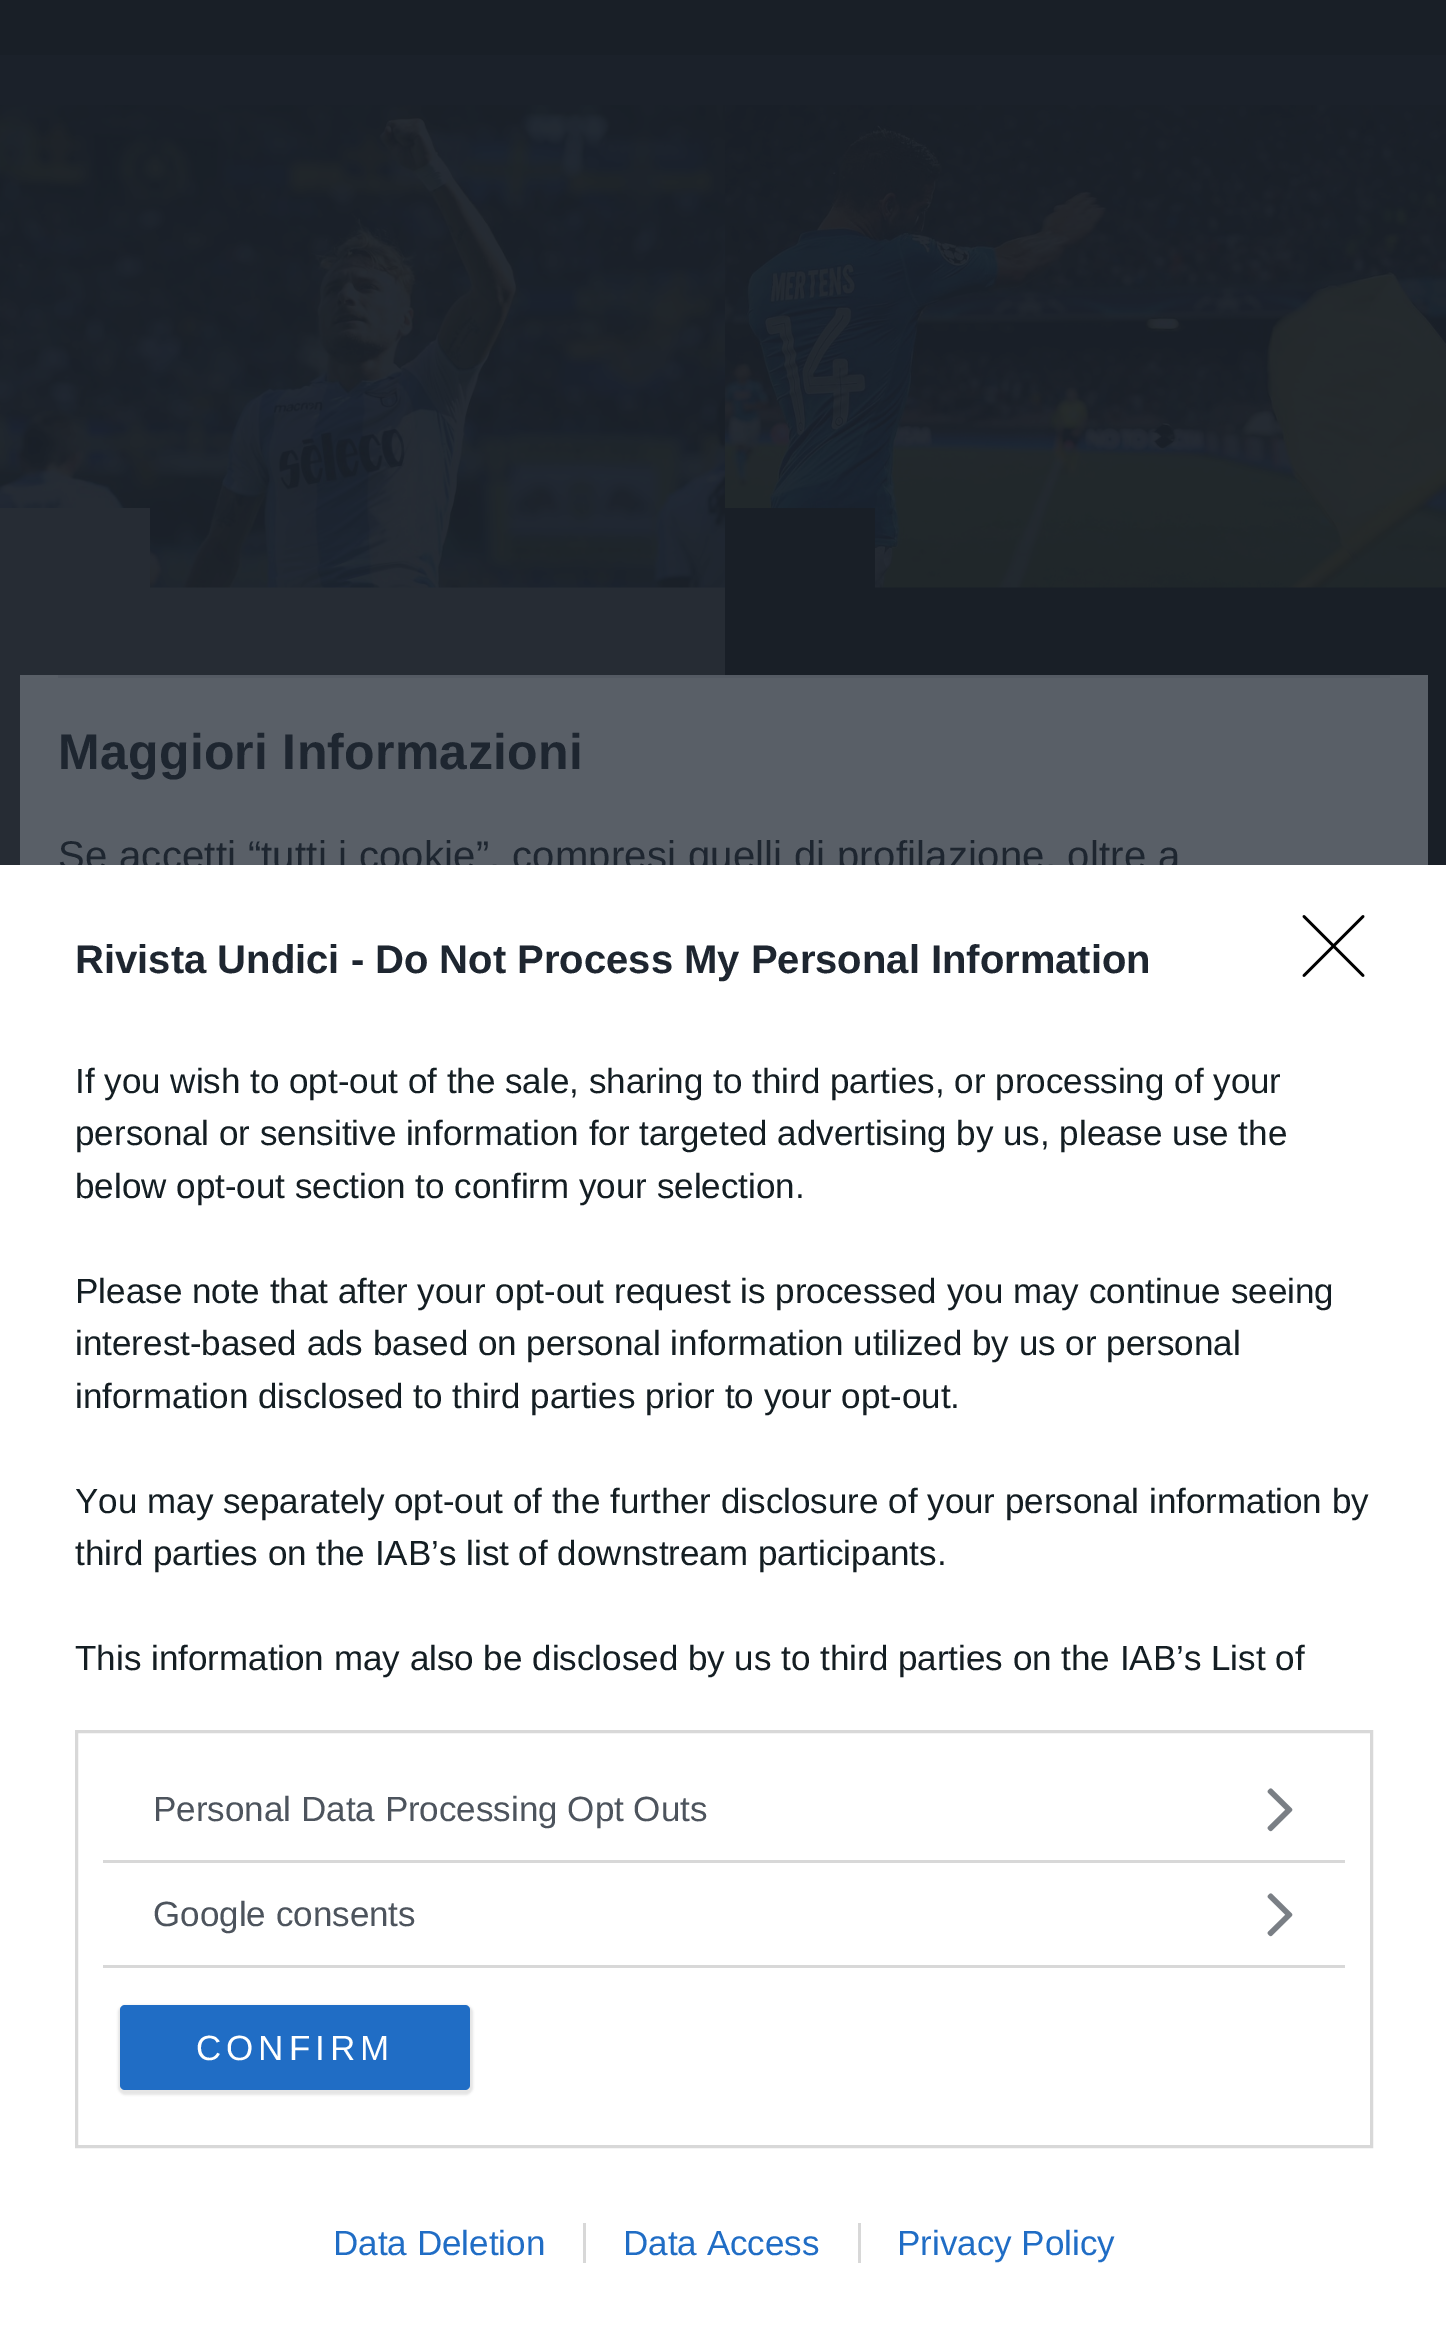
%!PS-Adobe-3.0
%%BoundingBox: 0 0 1446 2337
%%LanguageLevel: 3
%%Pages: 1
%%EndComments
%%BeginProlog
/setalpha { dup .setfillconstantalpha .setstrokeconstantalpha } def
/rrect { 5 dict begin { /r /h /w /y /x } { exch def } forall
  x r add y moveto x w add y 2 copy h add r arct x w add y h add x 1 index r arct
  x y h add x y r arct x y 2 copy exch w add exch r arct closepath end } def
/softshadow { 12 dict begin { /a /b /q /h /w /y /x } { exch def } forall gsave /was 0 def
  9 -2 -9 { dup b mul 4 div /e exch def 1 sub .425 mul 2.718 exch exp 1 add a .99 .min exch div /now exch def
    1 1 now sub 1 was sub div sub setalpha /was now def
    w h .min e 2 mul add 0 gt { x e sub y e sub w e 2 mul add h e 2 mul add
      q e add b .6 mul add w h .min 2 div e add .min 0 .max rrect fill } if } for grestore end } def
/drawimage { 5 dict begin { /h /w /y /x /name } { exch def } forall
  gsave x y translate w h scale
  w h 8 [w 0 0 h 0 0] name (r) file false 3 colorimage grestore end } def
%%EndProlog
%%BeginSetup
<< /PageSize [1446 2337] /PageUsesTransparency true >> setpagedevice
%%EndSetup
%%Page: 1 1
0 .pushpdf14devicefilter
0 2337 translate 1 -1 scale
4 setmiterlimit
0.106 0.129 0.165 setrgbcolor
0 0 1446 2337 rectfill
0.098 0.122 0.153 setrgbcolor
0 0 1446 55 rectfill
0.149 0.173 0.204 setrgbcolor
0 587 725 278 rectfill
(images/1.raw) 0 105 725 483 drawimage
0 508 150 80 rectfill
0.098 0.122 0.153 setrgbcolor
725 587 721 278 rectfill
(images/2.raw) 725 105 721 483 drawimage
725 508 150 80 rectfill
0.349 0.373 0.404 setrgbcolor
20 675 1408 190 rectfill
0.329 0.353 0.388 setrgbcolor
58 675 1332 3 rectfill
/LiberationSans-Bold [50 0 0 -50 0 0] selectfont
0.118 0.149 0.188 setrgbcolor
58 769 moveto 0.25 0 (Maggiori Informazioni) ashow
/LiberationSans-Regular [40 0 0 -40 0 0] selectfont
58 869 moveto 0.25 0 (Se accetti “tutti i cookie”, compresi quelli di profilazione, oltre a) ashow
1 setgray
0 865 1446 1472 rectfill
0 setgray
2.6 setlinewidth
1 setlinecap
1 setlinejoin
newpath 1304 916.5 moveto 1363 975.5 lineto 1363 916.5 moveto 1304 975.5 lineto stroke
/LiberationSans-Bold [40 0 0 -40 0 0] selectfont
0.118 0.149 0.188 setrgbcolor
75 973 moveto (Rivista Undici - Do Not Process My Personal Information) show
/LiberationSans-Regular [35 0 0 -35 0 0] selectfont
0.078 0.118 0.137 setrgbcolor
75 1093 moveto (If you wish to opt-out of the sale, sharing to third parties, or processing of your) show
75 1145 moveto (personal or sensitive information for targeted advertising by us, please use the) show
75 1198 moveto (below opt-out section to confirm your selection.) show
75 1303 moveto (Please note that after your opt-out request is processed you may continue seeing) show
75 1355 moveto (interest-based ads based on personal information utilized by us or personal) show
75 1408 moveto (information disclosed to third parties prior to your opt-out.) show
75 1513 moveto (You may separately opt-out of the further disclosure of your personal information by) show
75 1565 moveto (third parties on the IAB’s list of downstream participants.) show
75 1670 moveto (This information may also be disclosed by us to third parties on the IAB’s List of) show
0.847 setgray
3 setlinewidth
0 setlinecap
0 setlinejoin
76.5 1731.5 1295 415 rectstroke
103 1860 1242 3 rectfill
0.302 0.329 0.365 setrgbcolor
153 1821 moveto (Personal Data Processing Opt Outs) show
(images/3.raw) 1267 1788 26 44 drawimage
0.847 setgray
103 1965 1242 3 rectfill
0.302 0.329 0.365 setrgbcolor
153 1926 moveto (Google consents) show
(images/3.raw) 1267 1893 26 44 drawimage
0 setgray
118 2005 355 90 8 1 0.1 softshadow
0.125 0.427 0.773 setrgbcolor
120 2005 350 85 5 rrect fill
1 setgray
196 2060 moveto 5 0 (CONFIRM) ashow
0.125 0.427 0.773 setrgbcolor
333 2255 moveto (Data Deletion) show
623 2255 moveto (Data Access) show
0.847 setgray
583 2223 3 40 rectfill
0.125 0.427 0.773 setrgbcolor
897 2255 moveto (Privacy Policy) show
0.847 setgray
858 2223 3 40 rectfill
.poppdf14devicefilter showpage
%%EOF
